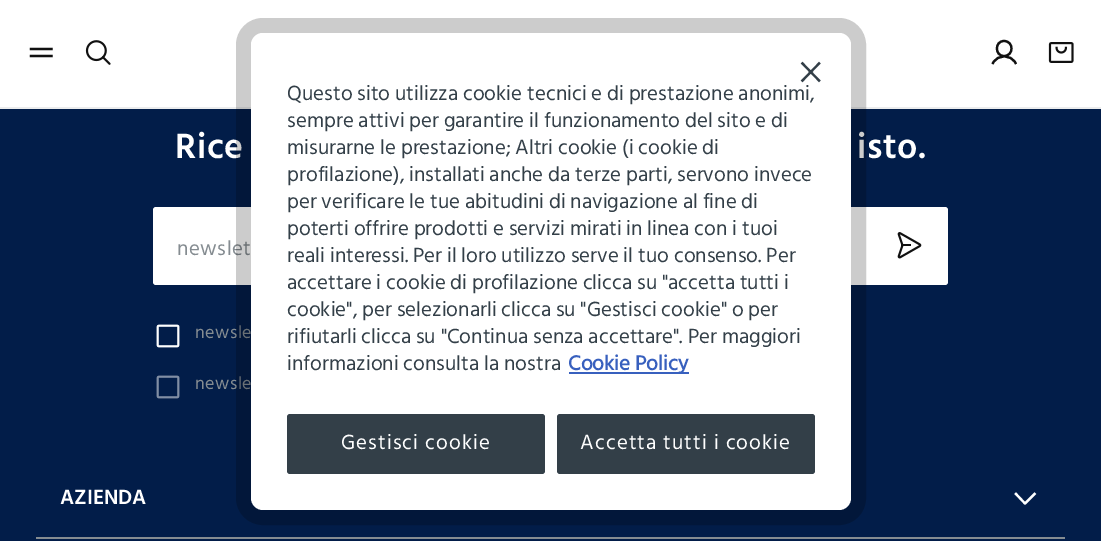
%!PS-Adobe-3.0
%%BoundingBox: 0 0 1101 541
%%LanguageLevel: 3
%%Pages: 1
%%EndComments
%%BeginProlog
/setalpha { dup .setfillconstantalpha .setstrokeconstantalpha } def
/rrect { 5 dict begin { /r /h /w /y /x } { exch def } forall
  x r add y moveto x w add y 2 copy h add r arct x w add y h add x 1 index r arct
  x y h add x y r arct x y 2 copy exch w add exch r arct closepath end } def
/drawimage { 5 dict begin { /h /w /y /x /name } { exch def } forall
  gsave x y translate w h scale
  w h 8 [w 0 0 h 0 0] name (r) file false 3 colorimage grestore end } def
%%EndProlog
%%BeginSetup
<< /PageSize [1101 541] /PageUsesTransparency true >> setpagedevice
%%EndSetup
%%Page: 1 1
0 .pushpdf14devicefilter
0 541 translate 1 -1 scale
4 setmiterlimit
0.008 0.114 0.286 setrgbcolor
0 0 1101 541 rectfill
1 setgray
0 0 1101 107 rectfill
0.922 0.925 0.929 setrgbcolor
0 107 1101 2 rectfill
0.067 setgray
2.2 setlinewidth
2 setlinecap
1 setlinejoin
newpath 31 49 moveto 51.5 49 lineto 31 56 moveto 51.5 56 lineto stroke
(images/1.raw) 85 40 26 25 drawimage
newpath 1004 56 moveto 1014 56 1014 41 1004 41 curveto 994.5 41 994.5 56 1004 56 curveto closepath 993 63 moveto 998 54 1010.5 54 1015.5 63 curveto stroke
(images/2.raw) 1048 42 26 21 drawimage
1 setgray
153 207 795 78 3 rrect fill
(images/3.raw) 897 232 25 27 drawimage
(images/4.raw) 156 324 24 24 drawimage
(images/5.raw) 156 375 24 24 drawimage
newpath 1034.5 494 moveto 1025 503.5 lineto 1016 494 lineto stroke
0.522 0.549 0.569 setrgbcolor
36 537 1029 2 rectfill
/HindSiliguri-SemiBold [36 0 0 -36 0 0] selectfont
1 setgray
175 158 moveto 0.5 0 (Rice) ashow
857 158 moveto 0.5 0 (isto.) ashow
/HindSiliguri-Regular [21 0 0 -21 0 0] selectfont
0.522 0.549 0.569 setrgbcolor
177 255 moveto 0.5 0 (newslet) ashow
/HindSiliguri-Regular [18 0 0 -18 0 0] selectfont
195 338 moveto 0.5 0 (newsle) ashow
195 389 moveto 0.5 0 (newsle) ashow
0.2 setalpha
0 setgray
15 setlinewidth
0 setlinecap
0 setlinejoin
243.5 25.5 615 492 19.5 rrect stroke
1 setalpha
1 setgray
251 33 600 477 12 rrect fill
0.2 0.247 0.282 setrgbcolor
2.2 setlinewidth
2 setlinecap
1 setlinejoin
newpath 819 63.5 moveto 802.5 80.5 lineto 819 80.5 moveto 802.5 63.5 lineto stroke
557 414 258 60 3 rrect fill
/HindSiliguri-Regular [21 0 0 -21 0 0] selectfont
1 setgray
580 449 moveto 1.05 0 (Accetta tutti i cookie) ashow
0.2 0.247 0.282 setrgbcolor
287 414 258 60 3 rrect fill
1 setgray
341 449 moveto 1.05 0 (Gestisci cookie) ashow
0.22 0.376 0.745 setrgbcolor
569 372 120 2 rectfill
/HindSiliguri-Bold [21 0 0 -21 0 0] selectfont
568 370 moveto (Cookie Policy) show
/HindSiliguri-Regular [21 0 0 -21 0 0] selectfont
0.2 0.247 0.282 setrgbcolor
287 370 moveto (informazioni consulta la nostra) show
287 343 moveto (rifiutarli clicca su "Continua senza accettare". Per maggiori) show
287 316 moveto (cookie", per selezionarli clicca su "Gestisci cookie" o per) show
287 289 moveto (accettare i cookie di profilazione clicca su "accetta tutti i) show
287 262 moveto (reali interessi. Per il loro utilizzo serve il tuo consenso. Per) show
287 235 moveto (poterti offrire prodotti e servizi mirati in linea con i tuoi) show
287 208 moveto (per verificare le tue abitudini di navigazione al fine di) show
287 181 moveto (profilazione\), installati anche da terze parti, servono invece) show
287 154 moveto (misurarne le prestazione; Altri cookie \(i cookie di) show
287 127 moveto (sempre attivi per garantire il funzionamento del sito e di) show
287 100 moveto (Questo sito utilizza cookie tecnici e di prestazione anonimi,) show
/HindSiliguri-SemiBold [21 0 0 -21 0 0] selectfont
1 setgray
60 504 moveto (AZIENDA) show
.poppdf14devicefilter showpage
%%EOF
